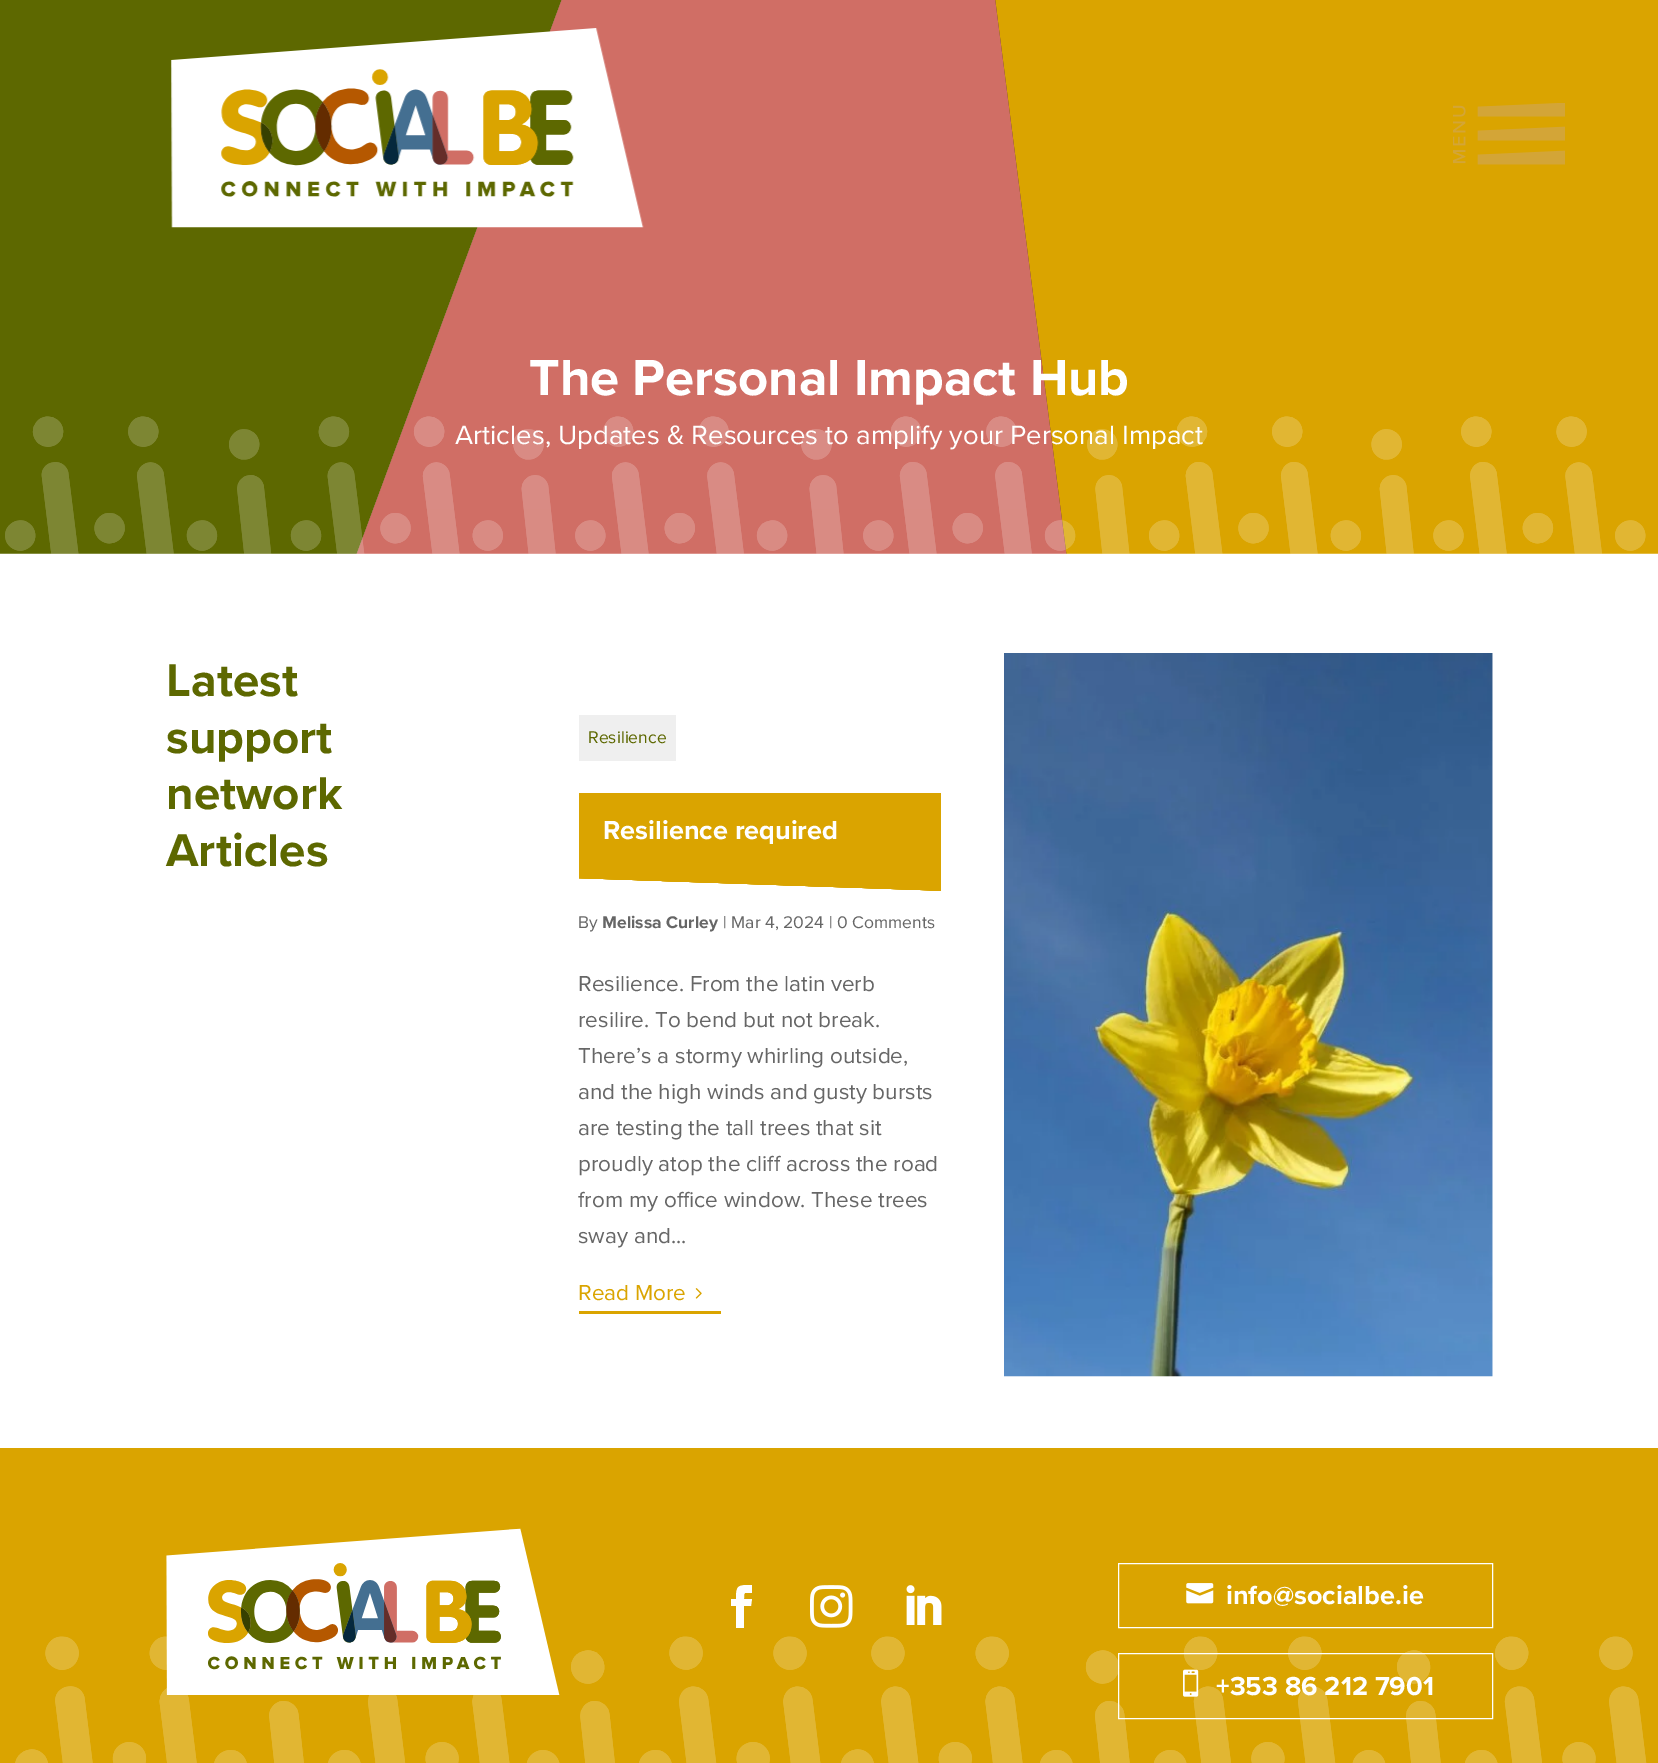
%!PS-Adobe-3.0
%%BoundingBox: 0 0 1658 1763
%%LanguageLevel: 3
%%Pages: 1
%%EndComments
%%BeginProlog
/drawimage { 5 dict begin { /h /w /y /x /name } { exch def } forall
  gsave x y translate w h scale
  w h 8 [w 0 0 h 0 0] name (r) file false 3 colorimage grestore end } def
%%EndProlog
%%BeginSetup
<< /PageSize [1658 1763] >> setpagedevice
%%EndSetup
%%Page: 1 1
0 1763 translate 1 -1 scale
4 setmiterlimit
1 setgray
0 0 1658 1763 rectfill
(images/3.raw) 0 0 1658 554 drawimage
(images/1.raw) 171 28 473 200 drawimage
(images/2.raw) 1453 103 112 62 drawimage
0.937 setgray
579 715 97 46 rectfill
(images/4.raw) 579 793 362 98 drawimage
0.855 0.643 0 setrgbcolor
579 1311 142 3 rectfill
(images/5.raw) 695 1288 7 11 drawimage
(images/6.raw) 1004 653 489 724 drawimage
0 1448 1658 315 rectfill
(images/7.raw) 15 1636 1632 127 drawimage
(images/8.raw) 166 1528 394 167 drawimage
1 setgray
newpath 736 1628 moveto 744 1628 lineto 744 1606 lineto 751 1606 lineto 752 1599 lineto 744 1599 lineto 744 1591 744 1593 752 1593 curveto 752 1585 lineto 738 1585 736 1585 736 1599 curveto 731 1599 lineto 731 1606 lineto 736 1606 lineto closepath fill
(images/9.raw) 810 1585 43 43 drawimage
(images/10.raw) 906 1585 36 40 drawimage
1118.5 1563.5 374 64 rectstroke
(images/11.raw) 1186 1583 28 21 drawimage
1118.5 1653.5 374 65 rectstroke
(images/12.raw) 1183 1669 16 28 drawimage
/ProximaNova-Bold [52.5 0 0 -52.5 0 0] selectfont
529 395 moveto (The Personal Impact Hub) show
/ProximaNova-Regular [27.5 0 0 -27.5 0 0] selectfont
455 444 moveto (Articles, Updates & Resources to amplify your Personal Impact) show
/ProximaNova-Bold [47.5 0 0 -47.5 0 0] selectfont
0.365 0.408 0 setrgbcolor
166 696 moveto (Latest) show
166 753 moveto (support) show
166 809 moveto (network) show
166 866 moveto (Articles) show
/ProximaNova-Regular [17.5 0 0 -17.5 0 0] selectfont
588 743 moveto (Resilience) show
/ProximaNova-Bold [27 0 0 -27 0 0] selectfont
1 setgray
603 839 moveto (Resilience required) show
/ProximaNova-Regular [17.5 0 0 -17.5 0 0] selectfont
0.4 setgray
578 928 moveto (By) show
/ProximaNova-Bold [17.5 0 0 -17.5 0 0] selectfont
602 928 moveto (Melissa Curley) show
/ProximaNova-Regular [17.5 0 0 -17.5 0 0] selectfont
723 928 moveto (| Mar 4, 2024 | 0 Comments) show
/ProximaNova-Regular [22.5 0 0 -22.5 0 0] selectfont
578 991 moveto (Resilience. From the latin verb) show
578 1027 moveto (resilire. To bend but not break.) show
578 1063 moveto (There’s a stormy whirling outside,) show
578 1099 moveto (and the high winds and gusty bursts) show
578 1135 moveto (are testing the tall trees that sit) show
578 1171 moveto (proudly atop the cliff across the road) show
578 1207 moveto (from my office window. These trees) show
578 1243 moveto (sway and...) show
0.855 0.643 0 setrgbcolor
578 1300 moveto (Read More) show
/ProximaNova-Bold [27 0 0 -27 0 0] selectfont
1 setgray
1226 1604 moveto (info@socialbe.ie) show
1216 1695 moveto (+353 86 212 7901) show
showpage
%%EOF
